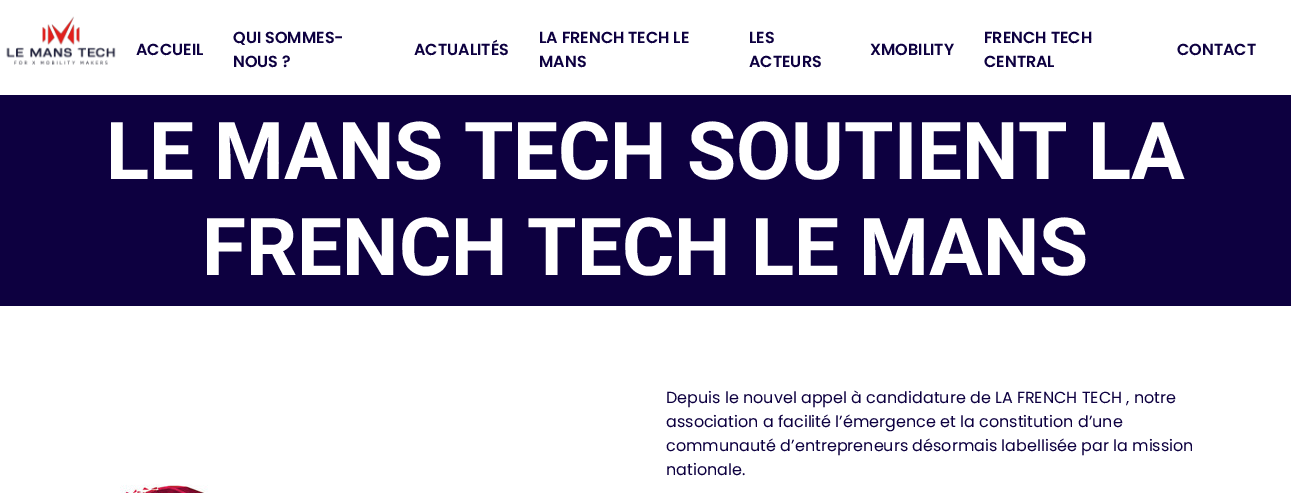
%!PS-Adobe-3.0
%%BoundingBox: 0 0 1291 493
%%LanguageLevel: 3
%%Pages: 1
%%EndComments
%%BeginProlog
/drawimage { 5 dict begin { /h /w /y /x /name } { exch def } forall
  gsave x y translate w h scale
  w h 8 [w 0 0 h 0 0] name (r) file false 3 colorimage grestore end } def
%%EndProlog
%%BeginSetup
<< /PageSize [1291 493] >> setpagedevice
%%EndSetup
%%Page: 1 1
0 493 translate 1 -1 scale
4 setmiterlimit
1 setgray
0 0 1291 493 rectfill
(images/1.raw) 6 16 110 49 drawimage
0.051 0 0.251 setrgbcolor
0 95 1291 211 rectfill
(images/2.raw) 120 484 88 9 drawimage
/Poppins-SemiBold [16 0 0 -16 0 0] selectfont
136 55 moveto (ACCUEIL) show
233 43 moveto (QUI SOMMES-) show
233 67 moveto (NOUS ?) show
414 55 moveto (ACTUALITÉS) show
539 43 moveto (LA FRENCH TECH LE) show
539 67 moveto (MANS) show
749 43 moveto (LES) show
749 67 moveto (ACTEURS) show
870 55 moveto (XMOBILITY) show
984 43 moveto (FRENCH TECH) show
984 67 moveto (CENTRAL) show
1177 55 moveto (CONTACT) show
/Roboto-Bold [80 0 0 -80 0 0] selectfont
1 setgray
106 179 moveto (LE MANS TECH SOUTIENT LA) show
202 275 moveto (FRENCH TECH LE MANS) show
/Poppins-Regular [16 0 0 -16 0 0] selectfont
0.051 0 0.251 setrgbcolor
666 403 moveto (Depuis le nouvel appel à candidature de LA FRENCH TECH , notre) show
666 427 moveto (association a facilité l’émergence et la constitution d’une) show
666 451 moveto (communauté d’entrepreneurs désormais labellisée par la mission) show
666 475 moveto (nationale.) show
showpage
%%EOF
